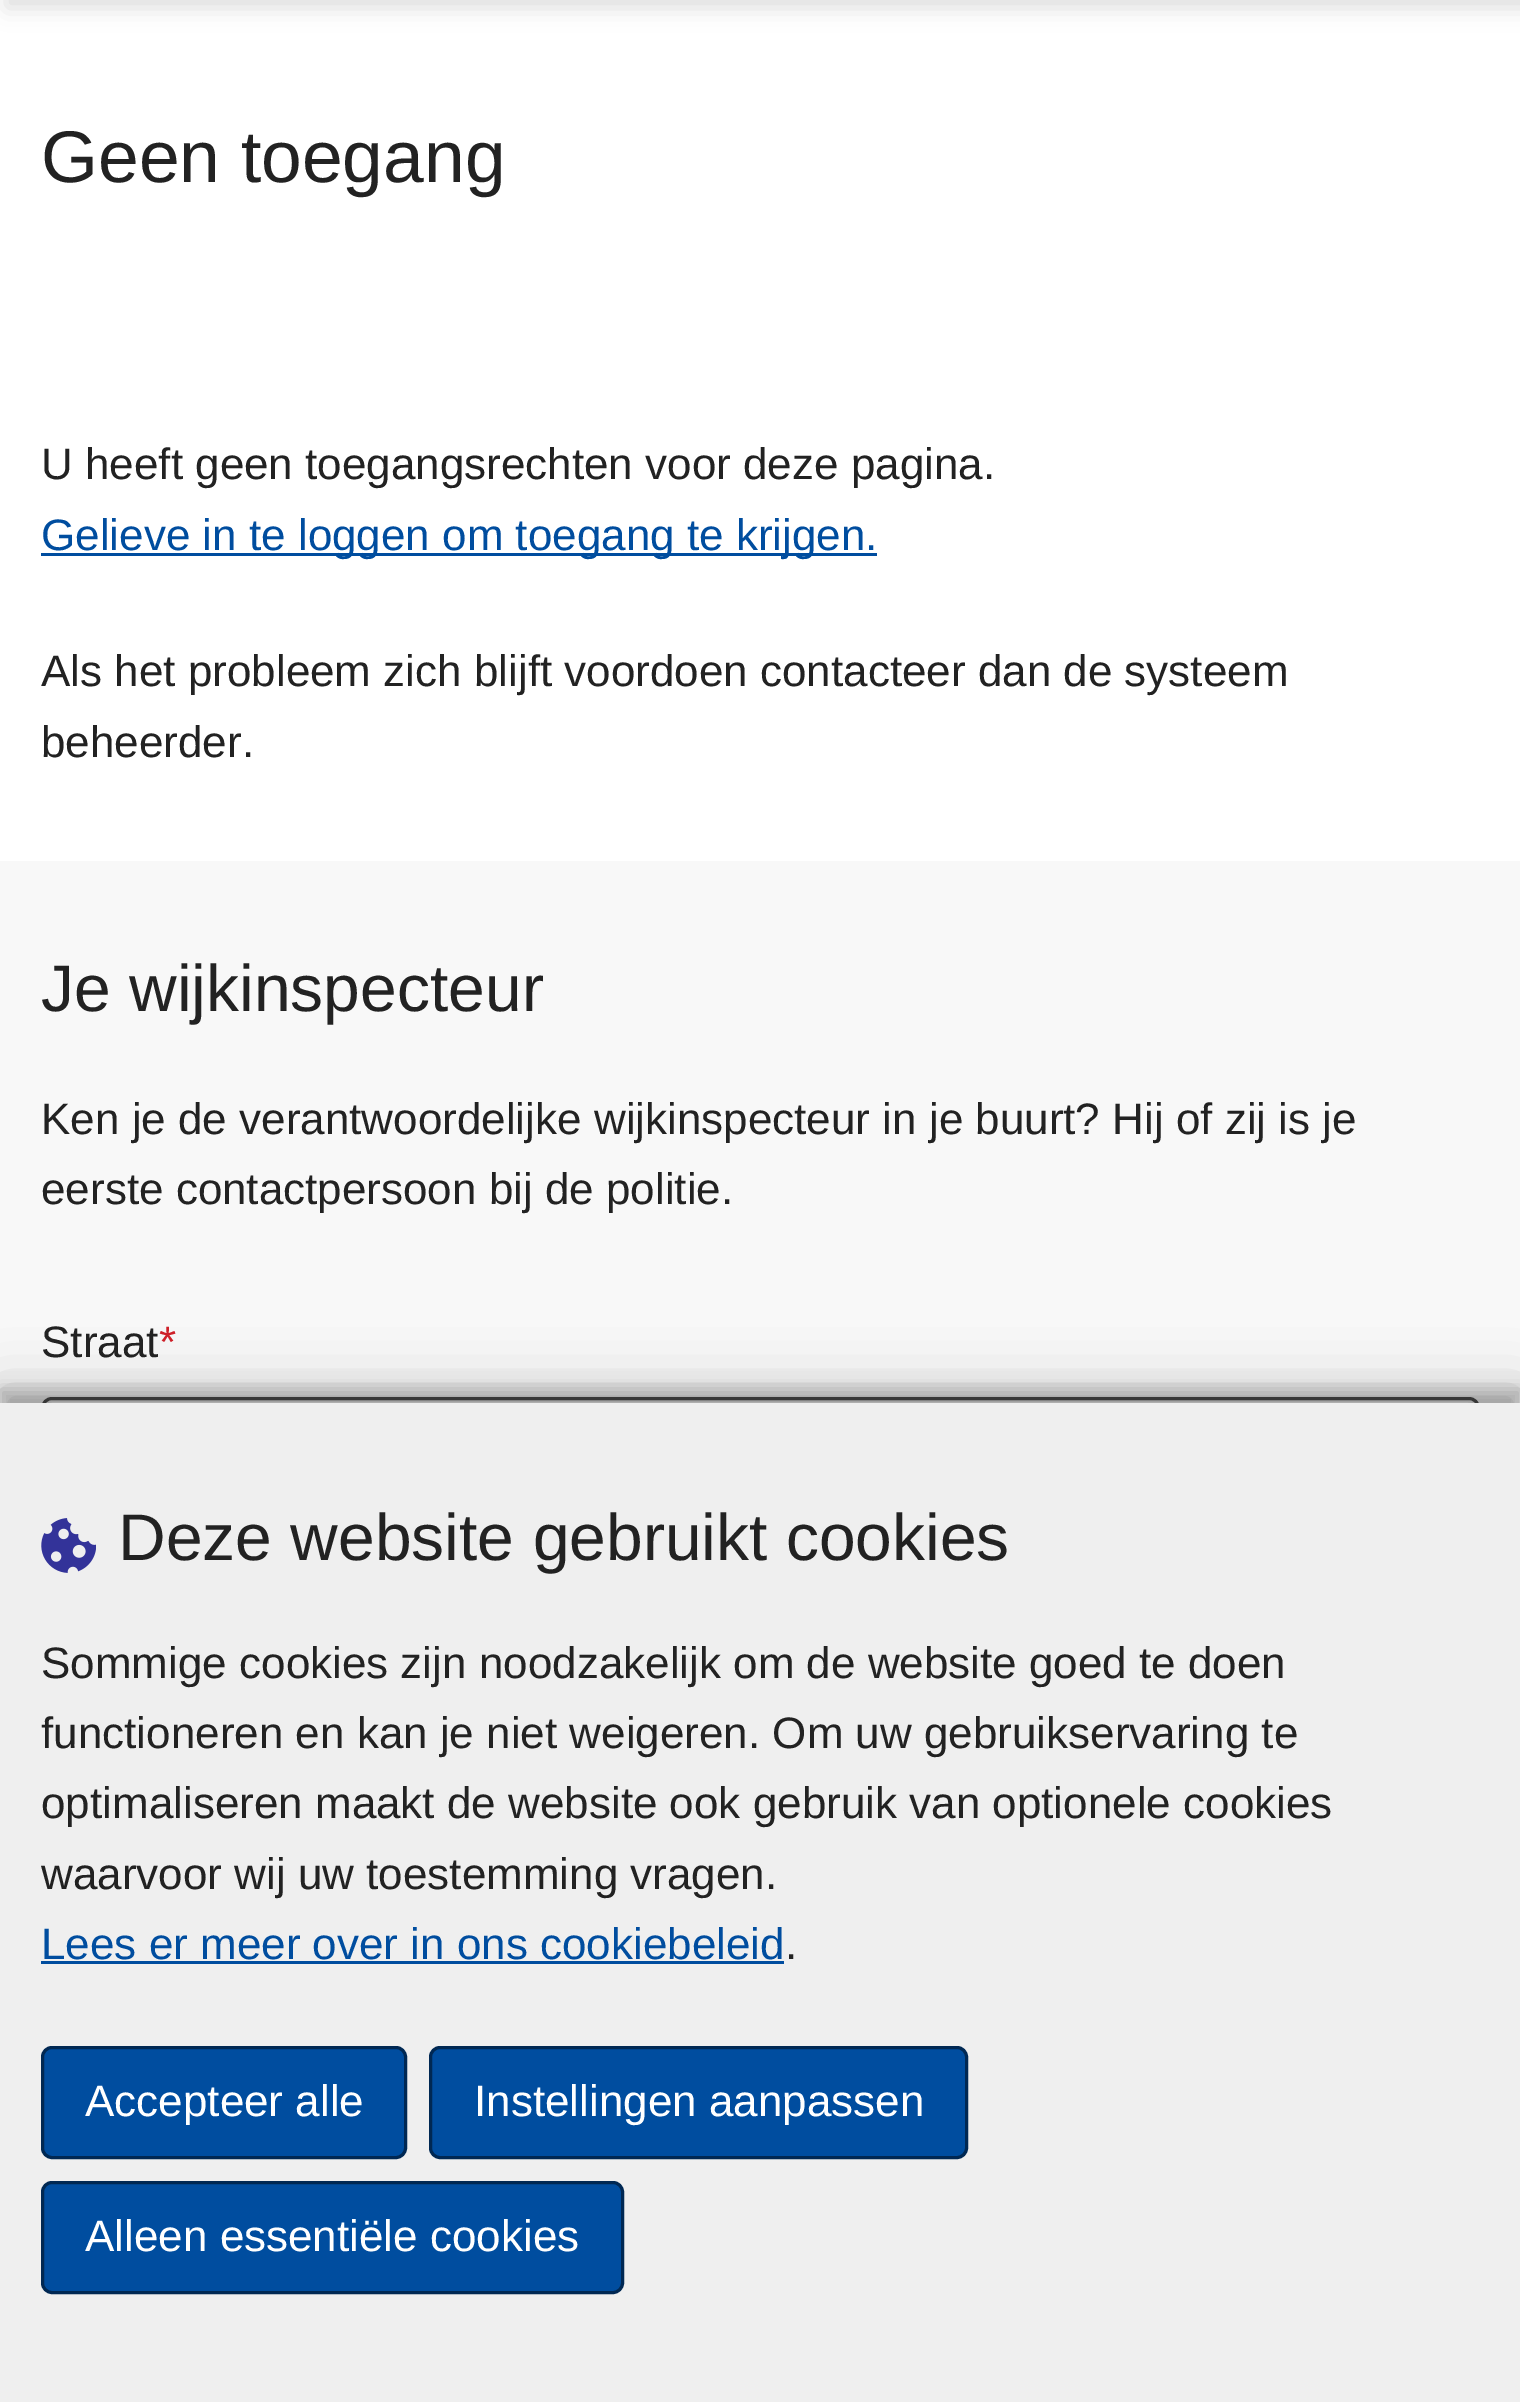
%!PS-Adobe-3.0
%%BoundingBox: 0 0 1520 2402
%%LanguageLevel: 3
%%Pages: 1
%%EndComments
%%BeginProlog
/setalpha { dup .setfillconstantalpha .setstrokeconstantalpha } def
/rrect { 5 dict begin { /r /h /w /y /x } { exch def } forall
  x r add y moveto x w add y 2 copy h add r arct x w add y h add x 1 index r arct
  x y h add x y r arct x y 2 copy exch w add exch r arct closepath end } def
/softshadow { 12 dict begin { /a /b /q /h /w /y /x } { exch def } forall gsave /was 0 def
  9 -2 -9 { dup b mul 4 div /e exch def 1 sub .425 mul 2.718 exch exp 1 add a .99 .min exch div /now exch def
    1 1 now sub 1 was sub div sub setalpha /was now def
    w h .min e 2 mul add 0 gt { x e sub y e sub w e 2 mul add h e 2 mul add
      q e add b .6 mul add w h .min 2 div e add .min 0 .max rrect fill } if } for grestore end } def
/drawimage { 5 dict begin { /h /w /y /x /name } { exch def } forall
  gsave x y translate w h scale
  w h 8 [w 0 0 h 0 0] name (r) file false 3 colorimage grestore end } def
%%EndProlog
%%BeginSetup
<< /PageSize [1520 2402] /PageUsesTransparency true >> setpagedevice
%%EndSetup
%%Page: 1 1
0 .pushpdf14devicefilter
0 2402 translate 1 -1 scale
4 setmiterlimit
1 setgray
0 0 1520 2402 rectfill
0.863 setgray
6 -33 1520 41 0 11 1 softshadow
0 0.302 0.624 setrgbcolor
41 553 836 3 rectfill
0.973 setgray
0 861 1520 542 rectfill
1 setgray
41 1397 1439 113 11 rrect fill
0.925 setgray
newpath 52 1402 moveto 1468 1402 lineto 1473 1402 1477 1406 1477 1411 curveto 1477 1406 1475 1400 1469 1400 curveto 52 1400 lineto 46 1400 44 1406 44 1411 curveto 44 1406 48 1402 52 1402 curveto closepath fill
0.314 setgray
3 setlinewidth
42.5 1398.5 1436 110 9.5 rrect stroke
0 setgray
0 1389 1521 1001 0 8 0.23 softshadow
0 1389 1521 1001 0 27.5 0.19 softshadow
0.937 setgray
0 1403 1520 999 rectfill
(images/1.raw) 41 1518 55 55 drawimage
0 0.302 0.624 setrgbcolor
41 1961 743 3 rectfill
42.5 2047.5 363 110 9.5 rrect gsave fill grestore
0 0.157 0.325 setrgbcolor
stroke
0 0.302 0.624 setrgbcolor
430.5 2047.5 536 110 9.5 rrect gsave fill grestore
0 0.157 0.325 setrgbcolor
stroke
0 0.302 0.624 setrgbcolor
42.5 2182.5 580 110 9.5 rrect gsave fill grestore
0 0.157 0.325 setrgbcolor
stroke
/LiberationSans-Regular [73.25 0 0 -73.25 0 0] selectfont
0.133 setgray
41 182 moveto (Geen toegang) show
/LiberationSans-Regular [44 0 0 -44 0 0] selectfont
41 479 moveto (U heeft geen toegangsrechten voor deze pagina.) show
0 0.302 0.624 setrgbcolor
41 550 moveto (Gelieve in te loggen om toegang te krijgen.) show
0.133 setgray
41 686 moveto (Als het probleem zich blijft voordoen contacteer dan de systeem) show
41 757 moveto (beheerder.) show
/LiberationSans-Regular [66 0 0 -66 0 0] selectfont
41 1011 moveto (Je wijkinspecteur) show
/LiberationSans-Regular [44 0 0 -44 0 0] selectfont
41 1134 moveto (Ken je de verantwoordelijke wijkinspecteur in je buurt? Hij of zij is je) show
41 1204 moveto (eerste contactpersoon bij de politie.) show
41 1357 moveto (Straat) show
0.808 0.125 0.161 setrgbcolor
159 1357 moveto (*) show
/LiberationSans-Regular [66 0 0 -66 0 0] selectfont
0.133 setgray
118 1560 moveto (Deze website gebruikt cookies) show
/LiberationSans-Regular [44 0 0 -44 0 0] selectfont
41 1678 moveto (Sommige cookies zijn noodzakelijk om de website goed te doen) show
41 1748 moveto (functioneren en kan je niet weigeren. Om uw gebruikservaring te) show
41 1818 moveto (optimaliseren maakt de website ook gebruik van optionele cookies) show
41 1889 moveto (waarvoor wij uw toestemming vragen.) show
0 0.302 0.624 setrgbcolor
41 1959 moveto (Lees er meer over in ons cookiebeleid) show
0.133 setgray
785 1959 moveto (.) show
1 setgray
85 2116 moveto (Accepteer alle) show
474 2116 moveto (Instellingen aanpassen) show
85 2251 moveto (Alleen essentiële cookies) show
.poppdf14devicefilter showpage
%%EOF
